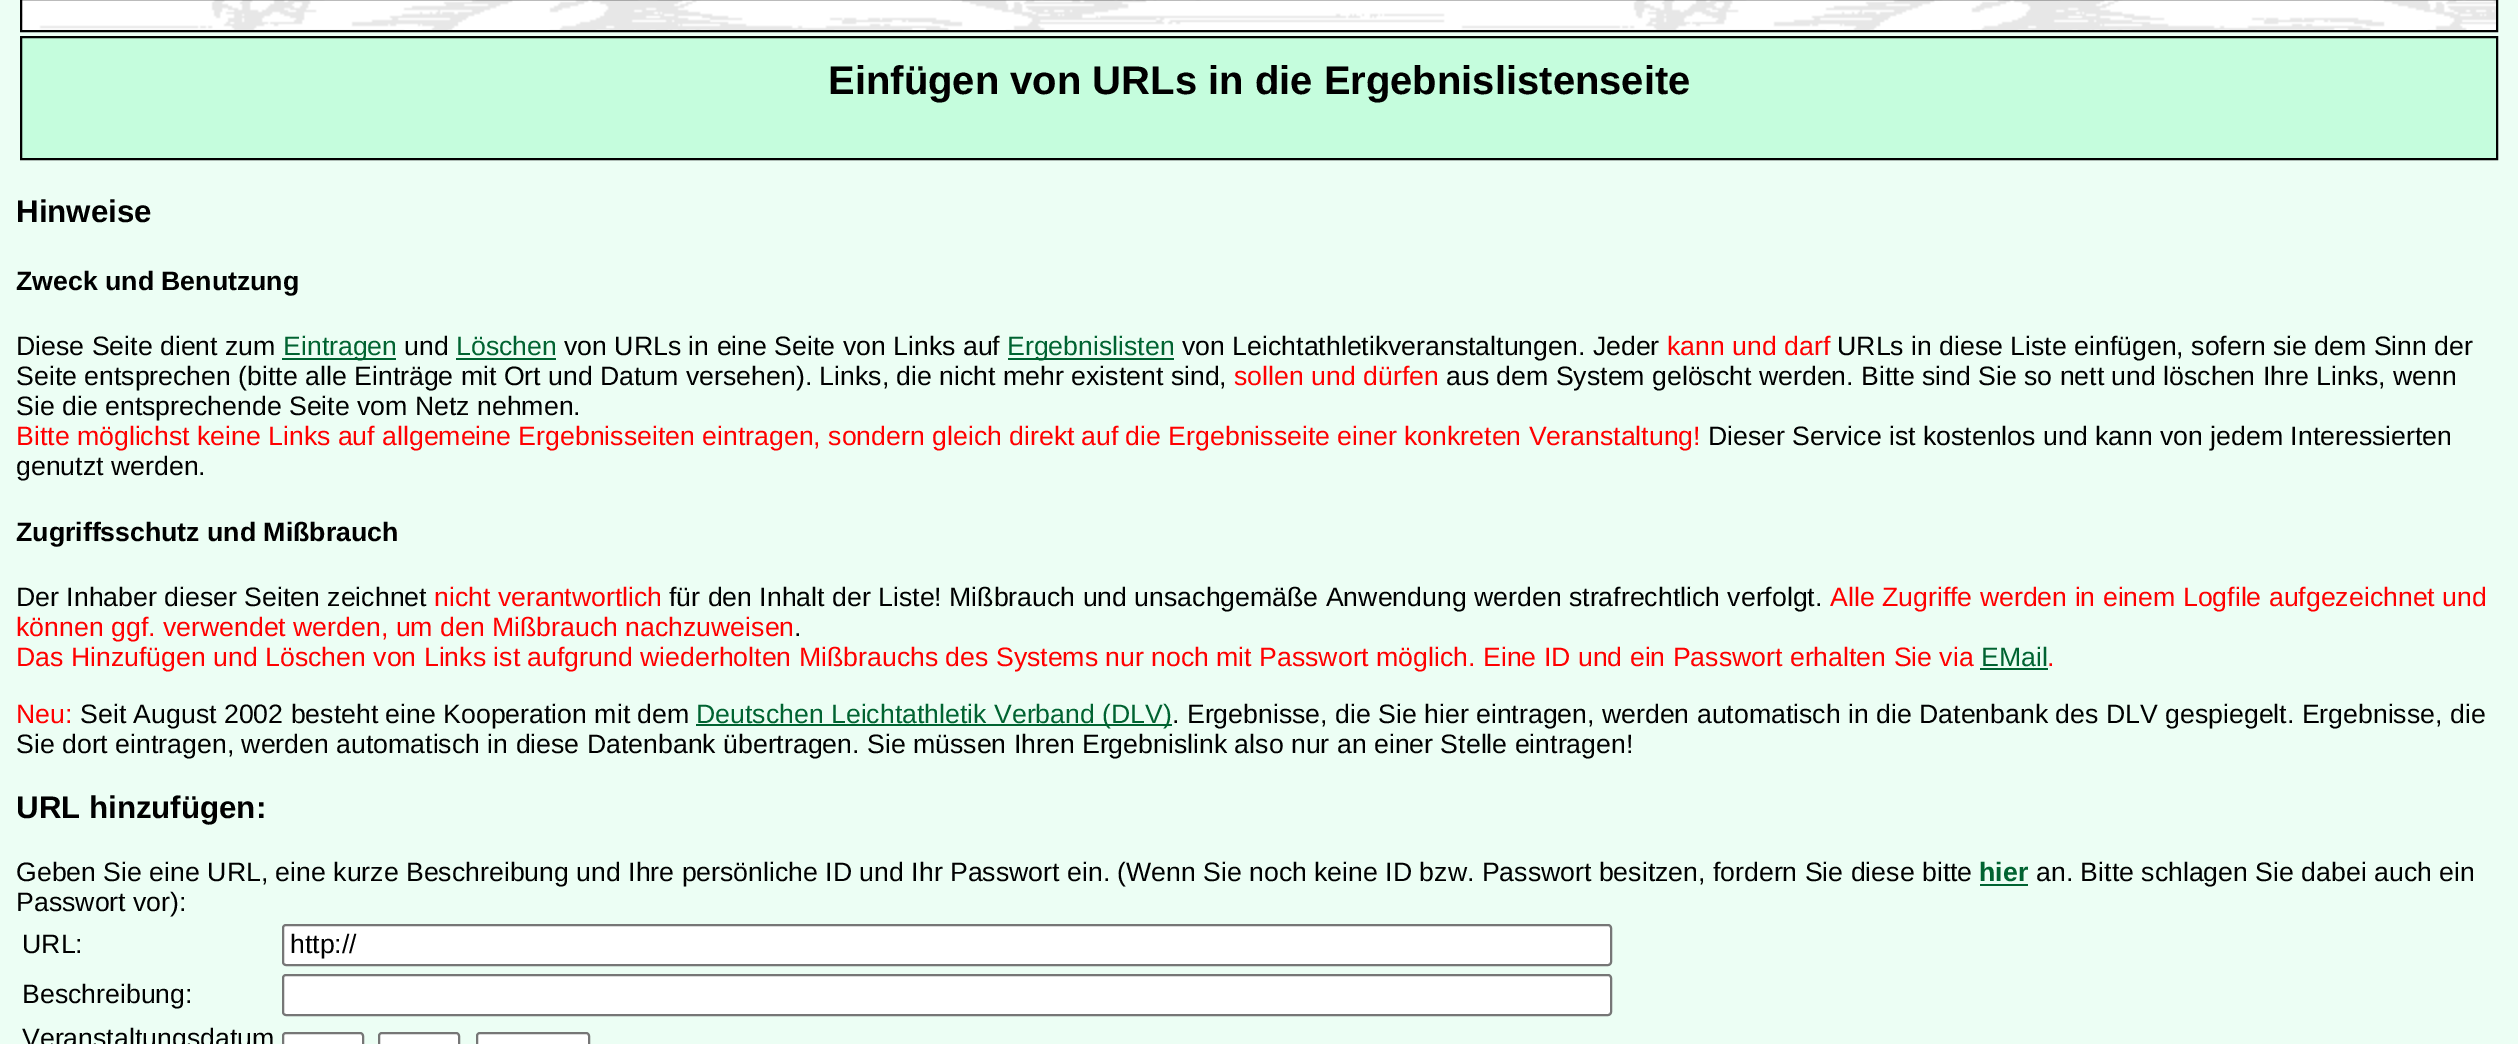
%!PS-Adobe-3.0
%%BoundingBox: 0 0 2518 1044
%%LanguageLevel: 3
%%Pages: 1
%%EndComments
%%BeginProlog
/rrect { 5 dict begin { /r /h /w /y /x } { exch def } forall
  x r add y moveto x w add y 2 copy h add r arct x w add y h add x 1 index r arct
  x y h add x y r arct x y 2 copy exch w add exch r arct closepath end } def
/drawimage { 5 dict begin { /h /w /y /x /name } { exch def } forall
  gsave x y translate w h scale
  w h 8 [w 0 0 h 0 0] name (r) file false 3 colorimage grestore end } def
%%EndProlog
%%BeginSetup
<< /PageSize [2518 1044] >> setpagedevice
%%EndSetup
%%Page: 1 1
0 1044 translate 1 -1 scale
4 setmiterlimit
0.925 0.996 0.957 setrgbcolor
0 0 2518 1044 rectfill
(images/1.raw) 22 0 2474 30 drawimage
0 setgray
2 setlinewidth
21 -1 2476 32 rectstroke
0.773 0.992 0.867 setrgbcolor
newpath 21 37 moveto 2497 37 lineto 2497 159 lineto 21 159 lineto closepath gsave fill grestore
0 setgray
stroke
0 0.388 0.192 setrgbcolor
282 358 114 2 rectfill
456 358 100 2 rectfill
1008 358 166 2 rectfill
1980 668 68 2 rectfill
696 724 476 2 rectfill
1980 884 48 2 rectfill
1 setgray
283 925 1328 40 3 rrect gsave fill grestore
0.463 setgray
stroke
1 setgray
283 975 1328 40 3 rrect gsave fill grestore
0.463 setgray
stroke
1 setgray
283 1033 80 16 3 rrect gsave fill grestore
0.463 setgray
stroke
1 setgray
379 1033 80 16 3 rrect gsave fill grestore
0.463 setgray
stroke
1 setgray
477 1033 112 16 3 rrect gsave fill grestore
0.463 setgray
stroke
/LiberationSans-Bold [40 0 0 -40 0 0] selectfont
0 setgray
828 94 moveto (Einfügen von URLs in die Ergebnislistenseite) show
/LiberationSans-Bold [31.25 0 0 -31.25 0 0] selectfont
16 222 moveto (Hinweise) show
/LiberationSans-Bold [26.67 0 0 -26.67 0 0] selectfont
16 290 moveto (Zweck und Benutzung) show
/LiberationSans-Regular [26.67 0 0 -26.67 0 0] selectfont
16 355 moveto (Diese Seite dient zum) show
0 0.388 0.192 setrgbcolor
283 355 moveto (Eintragen) show
0 setgray
404 355 moveto (und) show
0 0.388 0.192 setrgbcolor
456 355 moveto (Löschen) show
0 setgray
564 355 moveto (von URLs in eine Seite von Links auf) show
0 0.388 0.192 setrgbcolor
1007 355 moveto (Ergebnislisten) show
0 setgray
1182 355 moveto (von Leichtathletikveranstaltungen. Jeder) show
1 0 0 setrgbcolor
1667 355 moveto (kann und darf) show
0 setgray
1837 355 moveto (URLs in diese Liste einfügen, sofern sie dem Sinn der) show
16 385 moveto (Seite entsprechen \(bitte alle Einträge mit Ort und Datum versehen\). Links, die nicht mehr existent sind,) show
1 0 0 setrgbcolor
1234 385 moveto (sollen und dürfen) show
0 setgray
1446 385 moveto (aus dem System gelöscht werden. Bitte sind Sie so nett und löschen Ihre Links, wenn) show
16 415 moveto (Sie die entsprechende Seite vom Netz nehmen.) show
1 0 0 setrgbcolor
16 445 moveto (Bitte möglichst keine Links auf allgemeine Ergebnisseiten eintragen, sondern gleich direkt) show
1081 445 moveto (auf die Ergebnisseite einer konkreten Veranstaltung!) show
0 setgray
1708 445 moveto (Dieser Service ist kostenlos und kann von jedem Interessierten) show
16 475 moveto (genutzt werden.) show
/LiberationSans-Bold [26.67 0 0 -26.67 0 0] selectfont
16 541 moveto (Zugriffsschutz und Mißbrauch) show
/LiberationSans-Regular [26.67 0 0 -26.67 0 0] selectfont
16 606 moveto (Der Inhaber dieser Seiten zeichnet) show
1 0 0 setrgbcolor
434 606 moveto (nicht verantwortlich) show
0 setgray
669 606 moveto (für den Inhalt der Liste! Mißbrauch und unsachgemäße Anwendung werden strafrechtlich verfolgt.) show
1 0 0 setrgbcolor
1830 606 moveto (Alle Zugriffe werden in einem Logfile aufgezeichnet und) show
16 636 moveto (können ggf. verwendet werden, um den Mißbrauch nachzuweisen) show
0 setgray
794 636 moveto (.) show
1 0 0 setrgbcolor
16 666 moveto (Das Hinzufügen und Löschen von Links ist aufgrund wiederholten Mißbrauchs des Systems nur) show
1151 666 moveto (noch mit Passwort möglich. Eine ID und ein Passwort erhalten Sie via) show
0 0.388 0.192 setrgbcolor
1981 666 moveto (EMail) show
1 0 0 setrgbcolor
2047 666 moveto (.) show
16 723 moveto (Neu:) show
0 setgray
80 723 moveto (Seit August 2002 besteht eine Kooperation mit dem) show
0 0.388 0.192 setrgbcolor
696 723 moveto (Deutschen Leichtathletik Verband \(DLV\)) show
0 setgray
1172 723 moveto (. Ergebnisse, die Sie hier eintragen, werden automatisch in die Datenbank des DLV gespiegelt. Ergebnisse, die) show
16 753 moveto (Sie dort eintragen, werden automatisch in diese Datenbank übertragen. Sie müssen Ihren Ergebnislink also nur an einer Stelle eintragen!) show
/LiberationSans-Bold [31.25 0 0 -31.25 0 0] selectfont
16 818 moveto (URL hinzufügen:) show
/LiberationSans-Regular [26.67 0 0 -26.67 0 0] selectfont
16 881 moveto (Geben Sie eine URL, eine kurze Beschreibung und Ihre persönliche ID und Ihr Passwort ein.) show
1117 881 moveto (\(Wenn Sie noch keine ID bzw. Passwort besitzen, fordern Sie diese bitte) show
/LiberationSans-Bold [26.67 0 0 -26.67 0 0] selectfont
0 0.388 0.192 setrgbcolor
1979 881 moveto (hier) show
/LiberationSans-Regular [26.67 0 0 -26.67 0 0] selectfont
0 setgray
2036 881 moveto (an. Bitte schlagen Sie dabei auch ein) show
16 911 moveto (Passwort vor\):) show
22 953 moveto (URL:) show
290 953 moveto (http://) show
22 1003 moveto (Beschreibung:) show
22 1047 moveto (Veranstaltungsdatum) show
showpage
%%EOF
